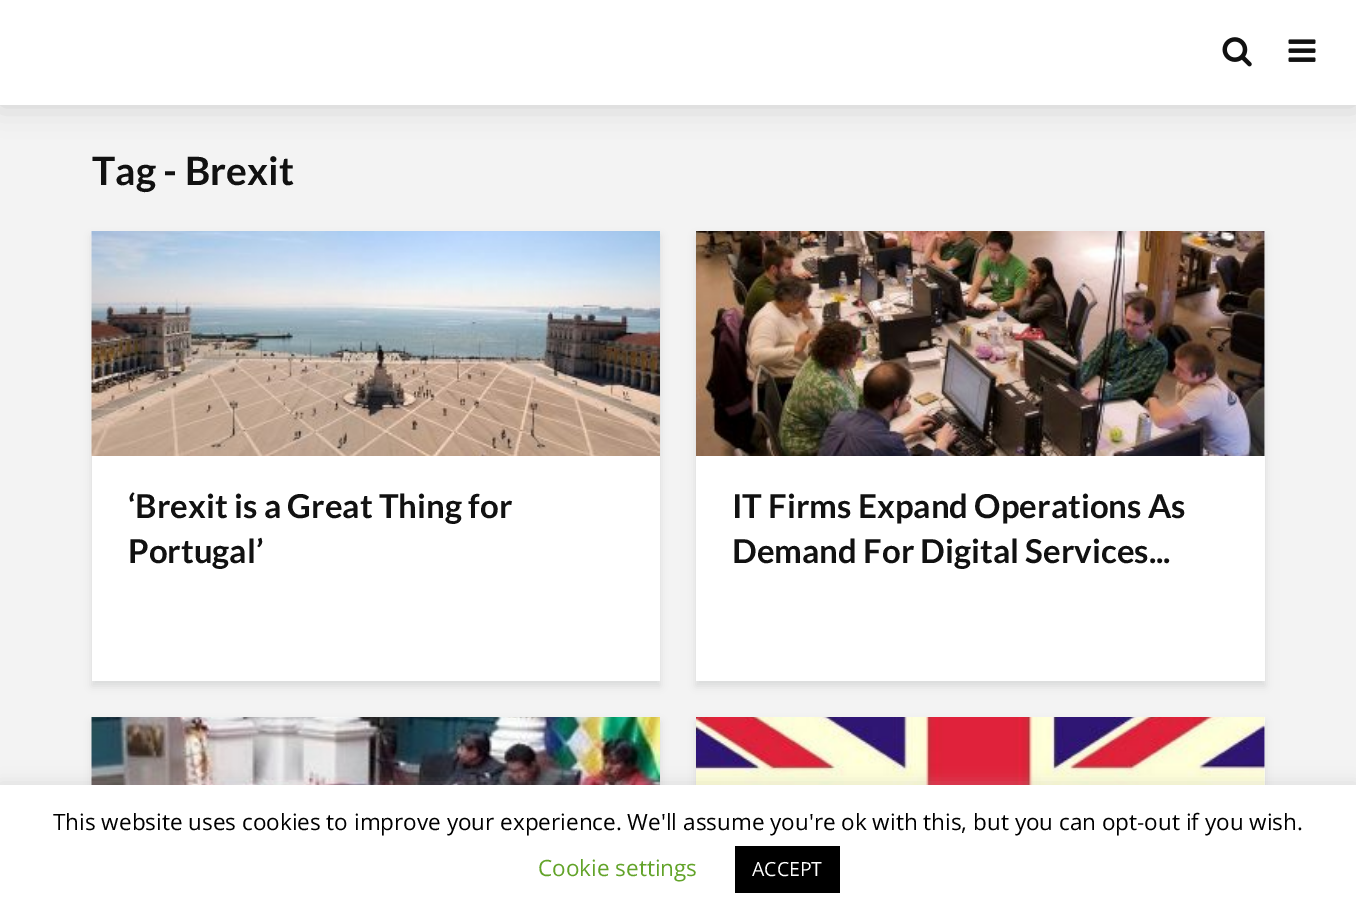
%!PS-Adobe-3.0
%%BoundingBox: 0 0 1356 918
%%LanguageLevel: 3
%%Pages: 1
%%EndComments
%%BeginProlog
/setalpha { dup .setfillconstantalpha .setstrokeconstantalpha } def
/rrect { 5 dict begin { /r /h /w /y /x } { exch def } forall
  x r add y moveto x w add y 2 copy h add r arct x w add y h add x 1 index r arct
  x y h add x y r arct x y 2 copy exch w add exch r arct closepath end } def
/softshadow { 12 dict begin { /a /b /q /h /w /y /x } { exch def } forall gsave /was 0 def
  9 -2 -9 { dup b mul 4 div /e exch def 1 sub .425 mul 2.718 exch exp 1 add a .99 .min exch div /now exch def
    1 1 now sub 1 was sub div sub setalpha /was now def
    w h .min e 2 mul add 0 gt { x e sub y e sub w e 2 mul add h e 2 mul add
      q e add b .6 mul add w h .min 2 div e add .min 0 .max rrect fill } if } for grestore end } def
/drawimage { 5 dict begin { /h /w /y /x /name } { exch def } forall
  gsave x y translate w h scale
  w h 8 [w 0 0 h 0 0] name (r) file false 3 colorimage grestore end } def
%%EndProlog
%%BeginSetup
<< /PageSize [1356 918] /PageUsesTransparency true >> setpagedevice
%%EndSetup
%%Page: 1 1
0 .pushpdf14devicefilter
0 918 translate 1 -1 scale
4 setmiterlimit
0.953 setgray
0 0 1356 918 rectfill
0 setgray
0 0 1356 105 0 15 0.15 softshadow
1 setgray
0 0 1356 105 rectfill
(images/1.raw) 1222 37 30 30 drawimage
(images/2.raw) 1288 39 28 23 drawimage
0 0.004 0.004 setrgbcolor
92 236 568 450 0 4 0.1 softshadow
1 setgray
92 456 568 225 rectfill
(images/3.raw) 91 231 569 225 drawimage
0 0.004 0.004 setrgbcolor
696 236 569 450 0 4 0.1 softshadow
1 setgray
696 231 569 450 rectfill
(images/4.raw) 696 231 569 225 drawimage
0 0.004 0.004 setrgbcolor
92 722 568 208 0 4 0.1 softshadow
(images/5.raw) 91 717 569 68 drawimage
696 722 569 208 0 4 0.1 softshadow
1 setgray
1264 717 1 68 rectfill
(images/6.raw) 696 717 569 68 drawimage
0.675 0.671 0.671 setrgbcolor
0 783 1356 134 0 7.5 0.3 softshadow
1 setgray
0 785 1356 133 rectfill
0 setgray
735 846 105 47 rectfill
/Lato-Bold [39 0 0 -39 0 0] selectfont
0.067 setgray
92 185 moveto (Tag - Brexit) show
/Lato-Bold [33 0 0 -33 0 0] selectfont
128 518 moveto (‘Brexit is a Great Thing for) show
128 563 moveto (Portugal’) show
732 518 moveto (IT Firms Expand Operations As) show
732 563 moveto (Demand For Digital Services...) show
/OpenSans-Regular [22.5 0 0 -22.5 0 0] selectfont
0 setgray
53 830 moveto (This website uses cookies to improve your experience. We'll assume you're ok with this, but you can opt-out if you wish.) show
0.384 0.639 0.161 setrgbcolor
538 876 moveto (Cookie settings) show
/OpenSans-Regular [19.5 0 0 -19.5 0 0] selectfont
1 setgray
752 876 moveto (ACCEPT) show
.poppdf14devicefilter showpage
%%EOF
